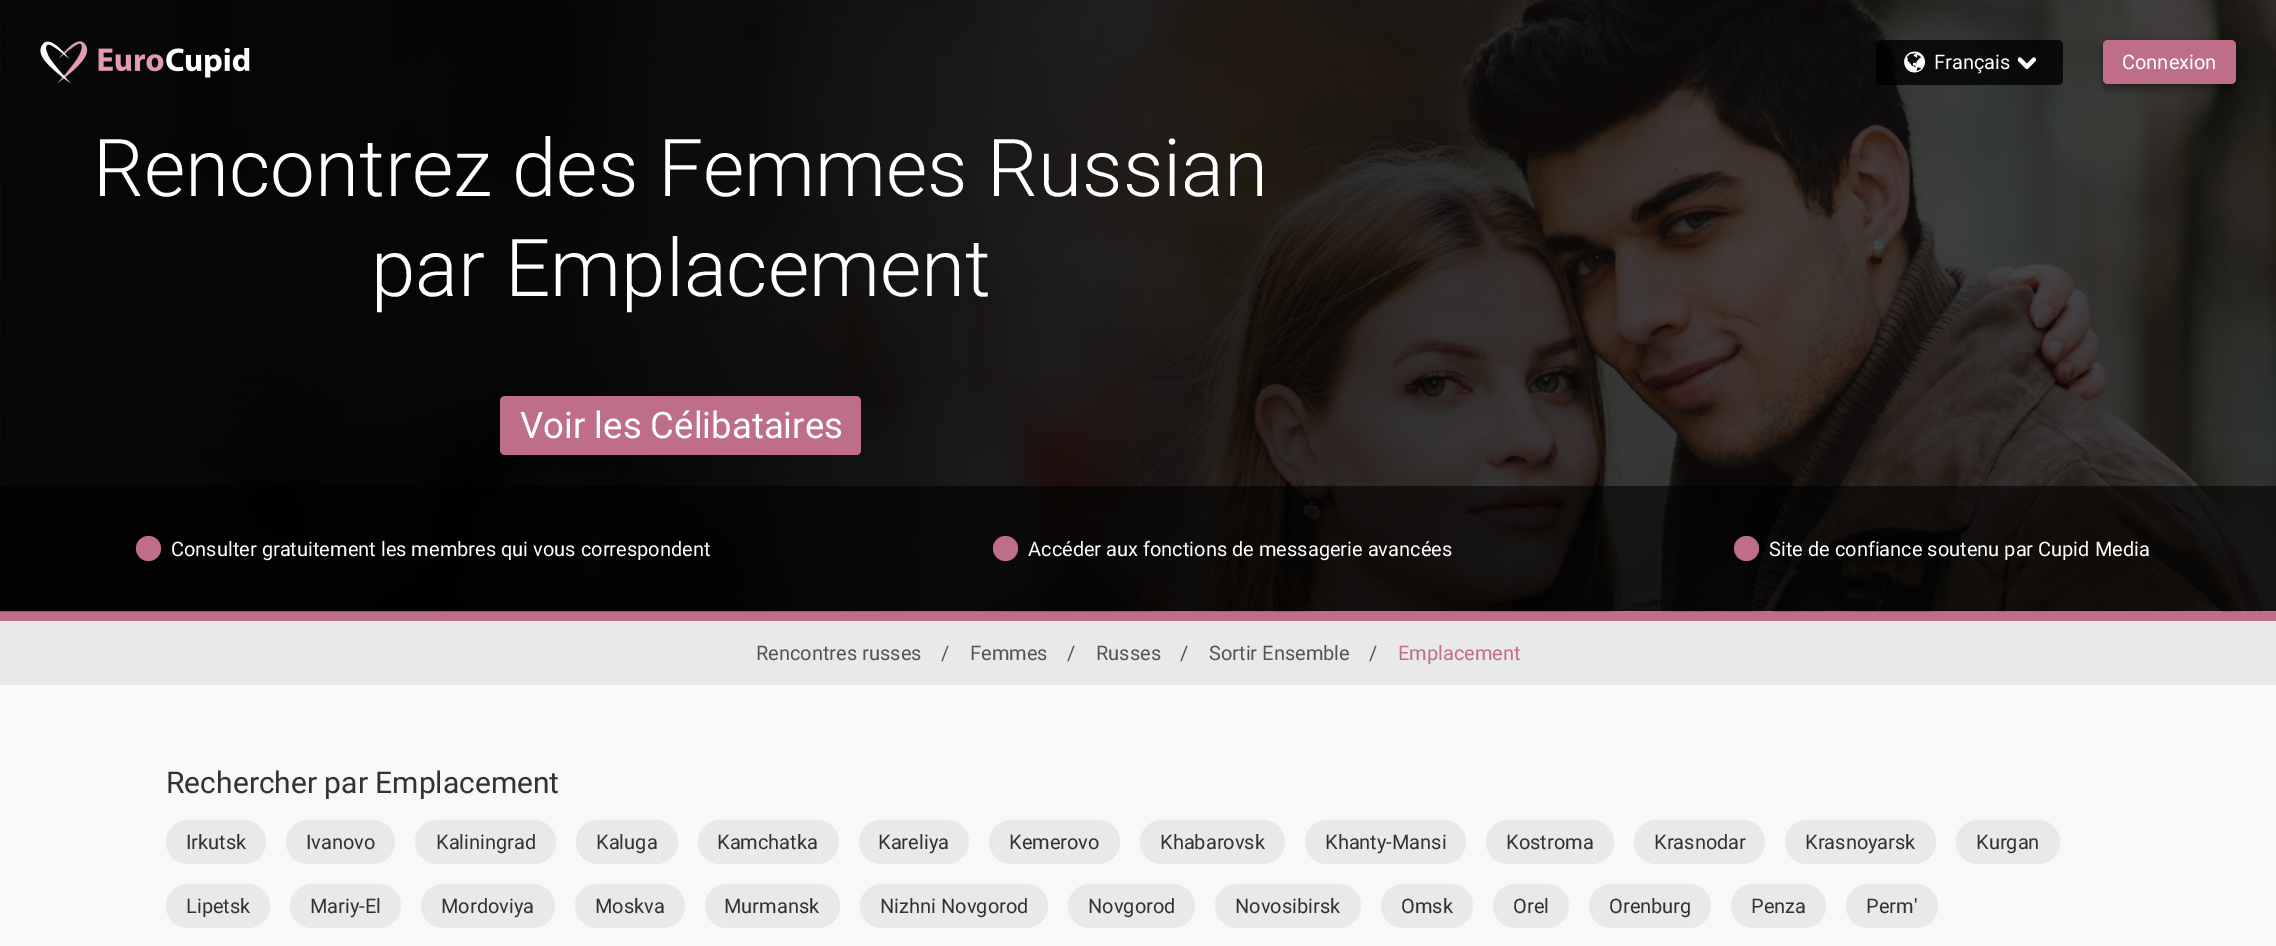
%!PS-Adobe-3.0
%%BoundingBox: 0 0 2276 946
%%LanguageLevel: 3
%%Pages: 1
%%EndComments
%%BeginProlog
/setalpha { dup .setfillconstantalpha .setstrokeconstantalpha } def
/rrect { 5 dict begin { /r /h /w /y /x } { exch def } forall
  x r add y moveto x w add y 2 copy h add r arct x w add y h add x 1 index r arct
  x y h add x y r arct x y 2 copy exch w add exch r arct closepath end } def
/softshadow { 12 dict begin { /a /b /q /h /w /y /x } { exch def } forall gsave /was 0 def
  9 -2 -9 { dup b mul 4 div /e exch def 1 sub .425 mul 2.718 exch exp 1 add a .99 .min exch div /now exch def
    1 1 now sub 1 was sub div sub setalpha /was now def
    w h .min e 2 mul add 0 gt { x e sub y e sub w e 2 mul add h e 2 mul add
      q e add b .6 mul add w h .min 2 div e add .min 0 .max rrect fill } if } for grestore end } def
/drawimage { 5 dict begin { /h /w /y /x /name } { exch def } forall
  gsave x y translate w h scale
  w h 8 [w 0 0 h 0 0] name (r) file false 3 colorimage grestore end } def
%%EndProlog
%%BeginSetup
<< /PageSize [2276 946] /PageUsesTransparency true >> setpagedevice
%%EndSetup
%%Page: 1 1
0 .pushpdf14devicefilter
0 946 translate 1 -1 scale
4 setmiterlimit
0.973 setgray
0 0 2276 946 rectfill
0.749 0.431 0.537 setrgbcolor
0 611 2276 10 rectfill
(images/5.raw) 0 0 2276 612 drawimage
(images/1.raw) 40 41 48 43 drawimage
(images/2.raw) 98 48 152 30 drawimage
0.8 setalpha
0 setgray
1876 40 187 45 5 rrect fill
1 setalpha
(images/3.raw) 1904 51 21 22 drawimage
(images/4.raw) 2017 57 19 12 drawimage
2103 44 133 44 5 4 0.4 softshadow
0.749 0.431 0.537 setrgbcolor
2103 40 133 44 5 rrect fill
500 396 361 59 5 rrect fill
0.6 setalpha
0 setgray
0 486 2276 125 rectfill
1 setalpha
0.749 0.431 0.537 setrgbcolor
newpath 148.5 548.5 12.5 0 360 arc closepath fill
newpath 1005.5 548.5 12.5 0 360 arc closepath fill
newpath 1746.5 548.5 12.5 0 360 arc closepath fill
0.914 setgray
0 621 2276 64 rectfill
166 820 100 44 22 rrect fill
286 820 109 44 22 rrect fill
415 820 141 44 22 rrect fill
576 820 102 44 22 rrect fill
698 820 141 44 22 rrect fill
859 820 110 44 22 rrect fill
989 820 131 44 22 rrect fill
1140 820 145 44 22 rrect fill
1305 820 161 44 22 rrect fill
1486 820 128 44 22 rrect fill
1634 820 131 44 22 rrect fill
1785 820 151 44 22 rrect fill
1956 820 104 44 22 rrect fill
166 884 104 44 22 rrect fill
290 884 111 44 22 rrect fill
421 884 134 44 22 rrect fill
575 884 110 44 22 rrect fill
705 884 135 44 22 rrect fill
860 884 188 44 22 rrect fill
1068 884 127 44 22 rrect fill
1215 884 146 44 22 rrect fill
1381 884 92 44 22 rrect fill
1493 884 76 44 22 rrect fill
1589 884 122 44 22 rrect fill
1731 884 95 44 22 rrect fill
1846 884 92 44 22 rrect fill
/Roboto-Regular [20 0 0 -20 0 0] selectfont
1 setgray
1934 69 moveto (Français) show
2122 69 moveto (Connexion) show
/Roboto-Light [80 0 0 -80 0 0] selectfont
93 196 moveto (Rencontrez des Femmes Russian) show
371 296 moveto (par Emplacement) show
/Roboto-Regular [36.5 0 0 -36.5 0 0] selectfont
520 438 moveto (Voir les Célibataires) show
/Roboto-Regular [20 0 0 -20 0 0] selectfont
171 556 moveto (Consulter gratuitement les membres qui vous correspondent) show
1028 556 moveto (Accéder aux fonctions de messagerie avancées) show
1769 556 moveto (Site de confiance soutenu par Cupid Media) show
0.314 0.337 0.337 setrgbcolor
756 660 moveto (Rencontres russes) show
941 660 moveto (/) show
970 660 moveto (Femmes) show
1067 660 moveto (/) show
1096 660 moveto (Russes) show
1180 660 moveto (/) show
1209 660 moveto (Sortir Ensemble) show
1369 660 moveto (/) show
0.749 0.431 0.537 setrgbcolor
1398 660 moveto (Emplacement) show
/Roboto-Regular [30 0 0 -30 0 0] selectfont
0.196 setgray
166 793 moveto (Rechercher par Emplacement) show
/Roboto-Regular [20 0 0 -20 0 0] selectfont
186 849 moveto (Irkutsk) show
306 849 moveto (Ivanovo) show
436 849 moveto (Kaliningrad) show
596 849 moveto (Kaluga) show
717 849 moveto (Kamchatka) show
878 849 moveto (Kareliya) show
1009 849 moveto (Kemerovo) show
1160 849 moveto (Khabarovsk) show
1325 849 moveto (Khanty-Mansi) show
1506 849 moveto (Kostroma) show
1654 849 moveto (Krasnodar) show
1805 849 moveto (Krasnoyarsk) show
1976 849 moveto (Kurgan) show
186 913 moveto (Lipetsk) show
310 913 moveto (Mariy-El) show
441 913 moveto (Mordoviya) show
595 913 moveto (Moskva) show
724 913 moveto (Murmansk) show
880 913 moveto (Nizhni Novgorod) show
1088 913 moveto (Novgorod) show
1235 913 moveto (Novosibirsk) show
1401 913 moveto (Omsk) show
1513 913 moveto (Orel) show
1609 913 moveto (Orenburg) show
1751 913 moveto (Penza) show
1866 913 moveto (Perm') show
.poppdf14devicefilter showpage
%%EOF
